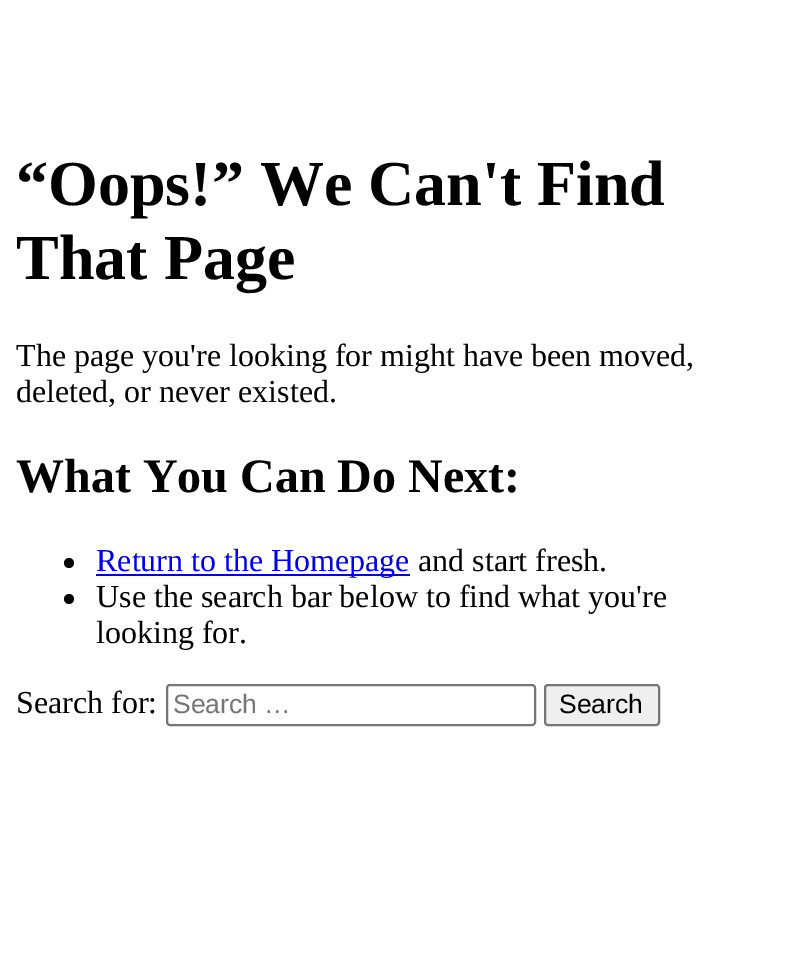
%!PS-Adobe-3.0
%%BoundingBox: 0 0 788 957
%%LanguageLevel: 3
%%Pages: 1
%%EndComments
%%BeginProlog
/rrect { 5 dict begin { /r /h /w /y /x } { exch def } forall
  x r add y moveto x w add y 2 copy h add r arct x w add y h add x 1 index r arct
  x y h add x y r arct x y 2 copy exch w add exch r arct closepath end } def
%%EndProlog
%%BeginSetup
<< /PageSize [788 957] >> setpagedevice
%%EndSetup
%%Page: 1 1
0 957 translate 1 -1 scale
4 setmiterlimit
1 setgray
0 0 788 957 rectfill
0 setgray
newpath 69 563 5 0 360 arc closepath fill
0 0 0.933 setrgbcolor
96 574 314 2 rectfill
0 setgray
newpath 69 599 5 0 360 arc closepath fill
0.463 setgray
2 setlinewidth
167 685 368 40 3 rrect stroke
0.937 setgray
545 685 114 40 3 rrect gsave fill grestore
0.463 setgray
stroke
/LiberationSerif-Bold [64 0 0 -64 0 0] selectfont
0 setgray
16 205 moveto (“Oops!” We Can't Find) show
16 279 moveto (That Page) show
/LiberationSerif-Regular [32 0 0 -32 0 0] selectfont
16 366 moveto (The page you're looking for might have been moved,) show
16 402 moveto (deleted, or never existed.) show
/LiberationSerif-Bold [48 0 0 -48 0 0] selectfont
16 492 moveto (What You Can Do Next:) show
/LiberationSerif-Regular [32 0 0 -32 0 0] selectfont
0 0 0.933 setrgbcolor
96 571 moveto (Return to the Homepage) show
0 setgray
418 571 moveto (and start fresh.) show
96 607 moveto (Use the search bar below to find what you're) show
96 643 moveto (looking for.) show
16 713 moveto (Search for:) show
/LiberationSans-Regular [26.5 0 0 -26.5 0 0] selectfont
0.459 setgray
173 713 moveto (Search …) show
0 setgray
559 713 moveto (Search) show
showpage
%%EOF
